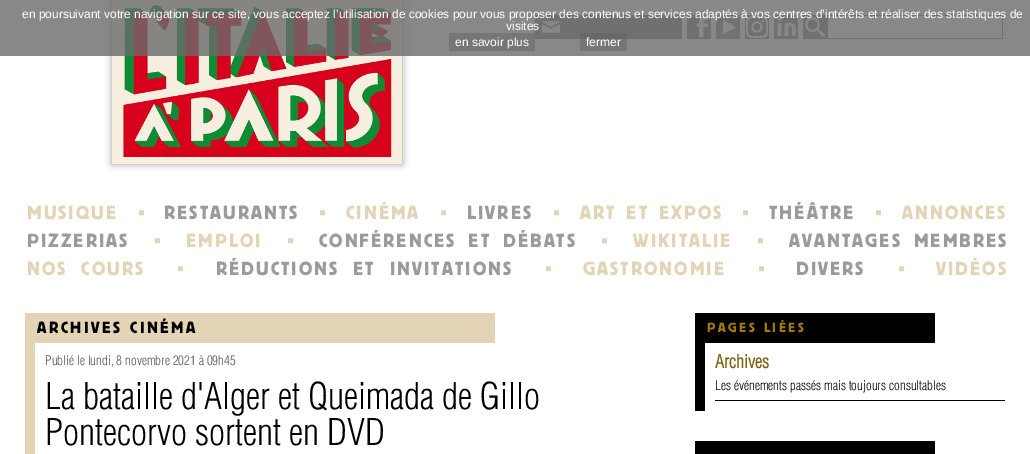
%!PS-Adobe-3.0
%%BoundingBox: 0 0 1030 454
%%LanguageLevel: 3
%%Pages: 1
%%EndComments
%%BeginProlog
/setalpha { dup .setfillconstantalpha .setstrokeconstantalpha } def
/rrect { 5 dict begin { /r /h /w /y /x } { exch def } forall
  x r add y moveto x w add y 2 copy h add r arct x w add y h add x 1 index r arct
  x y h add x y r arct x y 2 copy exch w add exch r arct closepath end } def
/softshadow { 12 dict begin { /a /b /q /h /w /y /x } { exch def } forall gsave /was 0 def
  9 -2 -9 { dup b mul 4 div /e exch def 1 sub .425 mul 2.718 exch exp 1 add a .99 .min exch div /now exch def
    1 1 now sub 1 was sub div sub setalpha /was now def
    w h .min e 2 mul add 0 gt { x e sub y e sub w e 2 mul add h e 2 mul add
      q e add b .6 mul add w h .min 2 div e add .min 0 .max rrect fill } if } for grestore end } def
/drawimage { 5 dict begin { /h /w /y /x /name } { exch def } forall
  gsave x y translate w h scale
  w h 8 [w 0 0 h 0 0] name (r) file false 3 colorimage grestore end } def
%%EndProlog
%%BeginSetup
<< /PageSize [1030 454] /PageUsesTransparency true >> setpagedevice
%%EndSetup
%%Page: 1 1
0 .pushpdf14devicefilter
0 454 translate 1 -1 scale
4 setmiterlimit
1 setgray
0 0 1030 454 rectfill
0.6 setgray
112 0 290 164 0 4 1 softshadow
(images/1.raw) 112 0 290 164 drawimage
0.537 setgray
535 15 147 24 rectfill
(images/2.raw) 542 21 18 12 drawimage
(images/3.raw) 687 15 24 24 drawimage
(images/4.raw) 716 15 24 24 drawimage
(images/5.raw) 745 15 24 24 drawimage
(images/6.raw) 774 15 24 24 drawimage
803 15 200 24 rectfill
(images/7.raw) 805 17 20 20 drawimage
1 setgray
828 16 174 22 rectfill
0.8 setalpha
0.416 setgray
0 0 1030 56 rectfill
1 setalpha
0.463 setgray
449 33 86 18 rectfill
0.4 setalpha
0.361 setgray
580 33 47 18 rectfill
1 setalpha
0.894 0.831 0.714 setrgbcolor
25 313 470 30 rectfill
25 343 10 111 rectfill
0 setgray
695 313 240 30 rectfill
695 343 10 68 rectfill
715 400 290 1 rectfill
695 441 240 13 rectfill
/LiberationSans-Regular [12 0 0 -12 0 0] selectfont
1 setgray
22 18 moveto (en poursuivant votre navigation sur ce site, vous acceptez l’utilisation de cookies pour vous proposer des contenus et services adaptés à vos centres d’intérêts et réaliser des statistiques de) show
506 30 moveto (visites) show
455 46 moveto (en savoir plus) show
586 46 moveto (fermer) show
/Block-Regular [20 0 0 -20 0 0] selectfont
0.894 0.831 0.714 setrgbcolor
27 219 moveto 2 0 (MUSIQUE) ashow
/LiberationSerif-Regular [20 0 0 -20 0 0] selectfont
138 219 moveto (▪) show
/Block-Regular [20 0 0 -20 0 0] selectfont
0.612 0.604 0.604 setrgbcolor
164 219 moveto 2 0 (RESTAURANTS) ashow
/LiberationSerif-Regular [20 0 0 -20 0 0] selectfont
0.894 0.831 0.714 setrgbcolor
319 219 moveto (▪) show
/Block-Regular [20 0 0 -20 0 0] selectfont
346 219 moveto 2 0 (CINÉMA) ashow
/LiberationSerif-Regular [20 0 0 -20 0 0] selectfont
440 219 moveto (▪) show
/Block-Regular [20 0 0 -20 0 0] selectfont
0.612 0.604 0.604 setrgbcolor
467 219 moveto 2 0 (LIVRES) ashow
/LiberationSerif-Regular [20 0 0 -20 0 0] selectfont
0.894 0.831 0.714 setrgbcolor
553 219 moveto (▪) show
/Block-Regular [20 0 0 -20 0 0] selectfont
580 219 moveto 2 0 32 2 0 (ART ET EXPOS) awidthshow
/LiberationSerif-Regular [20 0 0 -20 0 0] selectfont
742 219 moveto (▪) show
/Block-Regular [20 0 0 -20 0 0] selectfont
0.612 0.604 0.604 setrgbcolor
769 219 moveto 2 0 (THÉÂTRE) ashow
/LiberationSerif-Regular [20 0 0 -20 0 0] selectfont
0.894 0.831 0.714 setrgbcolor
875 219 moveto (▪) show
/Block-Regular [20 0 0 -20 0 0] selectfont
902 219 moveto 2 0 (ANNONCES) ashow
0.612 0.604 0.604 setrgbcolor
27 247 moveto 2 0 (PIZZERIAS) ashow
/LiberationSerif-Regular [20 0 0 -20 0 0] selectfont
0.894 0.831 0.714 setrgbcolor
154 247 moveto (▪) show
/Block-Regular [20 0 0 -20 0 0] selectfont
186 247 moveto 2 0 (EMPLOI) ashow
/LiberationSerif-Regular [20 0 0 -20 0 0] selectfont
287 247 moveto (▪) show
/Block-Regular [20 0 0 -20 0 0] selectfont
0.612 0.604 0.604 setrgbcolor
319 247 moveto 4 0 32 2 0 (CONFÉRENCES ET DÉBATS) awidthshow
/LiberationSerif-Regular [20 0 0 -20 0 0] selectfont
0.894 0.831 0.714 setrgbcolor
601 247 moveto (▪) show
/Block-Regular [20 0 0 -20 0 0] selectfont
633 247 moveto 2 0 (WIKITALIE) ashow
/LiberationSerif-Regular [20 0 0 -20 0 0] selectfont
757 247 moveto (▪) show
/Block-Regular [20 0 0 -20 0 0] selectfont
0.612 0.604 0.604 setrgbcolor
789 247 moveto 4 0 32 2 0 (AVANTAGES MEMBRES) awidthshow
0.894 0.831 0.714 setrgbcolor
27 275 moveto 6 0 32 2 0 (NOS COURS) awidthshow
/LiberationSerif-Regular [20 0 0 -20 0 0] selectfont
177 275 moveto (▪) show
/Block-Regular [20 0 0 -20 0 0] selectfont
0.612 0.604 0.604 setrgbcolor
216 275 moveto 6 0 32 2 0 (RÉDUCTIONS ET INVITATIONS) awidthshow
/LiberationSerif-Regular [20 0 0 -20 0 0] selectfont
0.894 0.831 0.714 setrgbcolor
545 275 moveto (▪) show
/Block-Regular [20 0 0 -20 0 0] selectfont
583 275 moveto 2 0 (GASTRONOMIE) ashow
/LiberationSerif-Regular [20 0 0 -20 0 0] selectfont
758 275 moveto (▪) show
/Block-Regular [20 0 0 -20 0 0] selectfont
0.612 0.604 0.604 setrgbcolor
796 275 moveto 2 0 (DIVERS) ashow
/LiberationSerif-Regular [20 0 0 -20 0 0] selectfont
0.894 0.831 0.714 setrgbcolor
898 275 moveto (▪) show
/Block-Regular [20 0 0 -20 0 0] selectfont
936 275 moveto 2 0 (VIDÉOS) ashow
/Block-Regular [17 0 0 -17 0 0] selectfont
0 setgray
37 333 moveto 2.5 0 (ARCHIVES CINÉMA) ashow
/Helvetica-Light [13 0 0 -13 0 0] selectfont
0.333 setgray
45 365 moveto (Publié le lundi, 8 novembre 2021 à 09h45) show
/Helvetica-Light [36 0 0 -36 0 0] selectfont
0 setgray
45 409 moveto (La bataille d'Alger et Queimada de Gillo) show
45 445 moveto (Pontecorvo sortent en DVD) show
/Block-Regular [14 0 0 -14 0 0] selectfont
0.631 0.475 0.031 setrgbcolor
707 332 moveto 2.5 0 (PAGES LIÉES) ashow
/Helvetica-Bold [18 0 0 -18 0 0] selectfont
0.494 0.376 0.063 setrgbcolor
715 368 moveto (Archives) show
/Helvetica-Light [13 0 0 -13 0 0] selectfont
0 setgray
715 390 moveto (Les événements passés mais toujours consultables) show
.poppdf14devicefilter showpage
%%EOF
